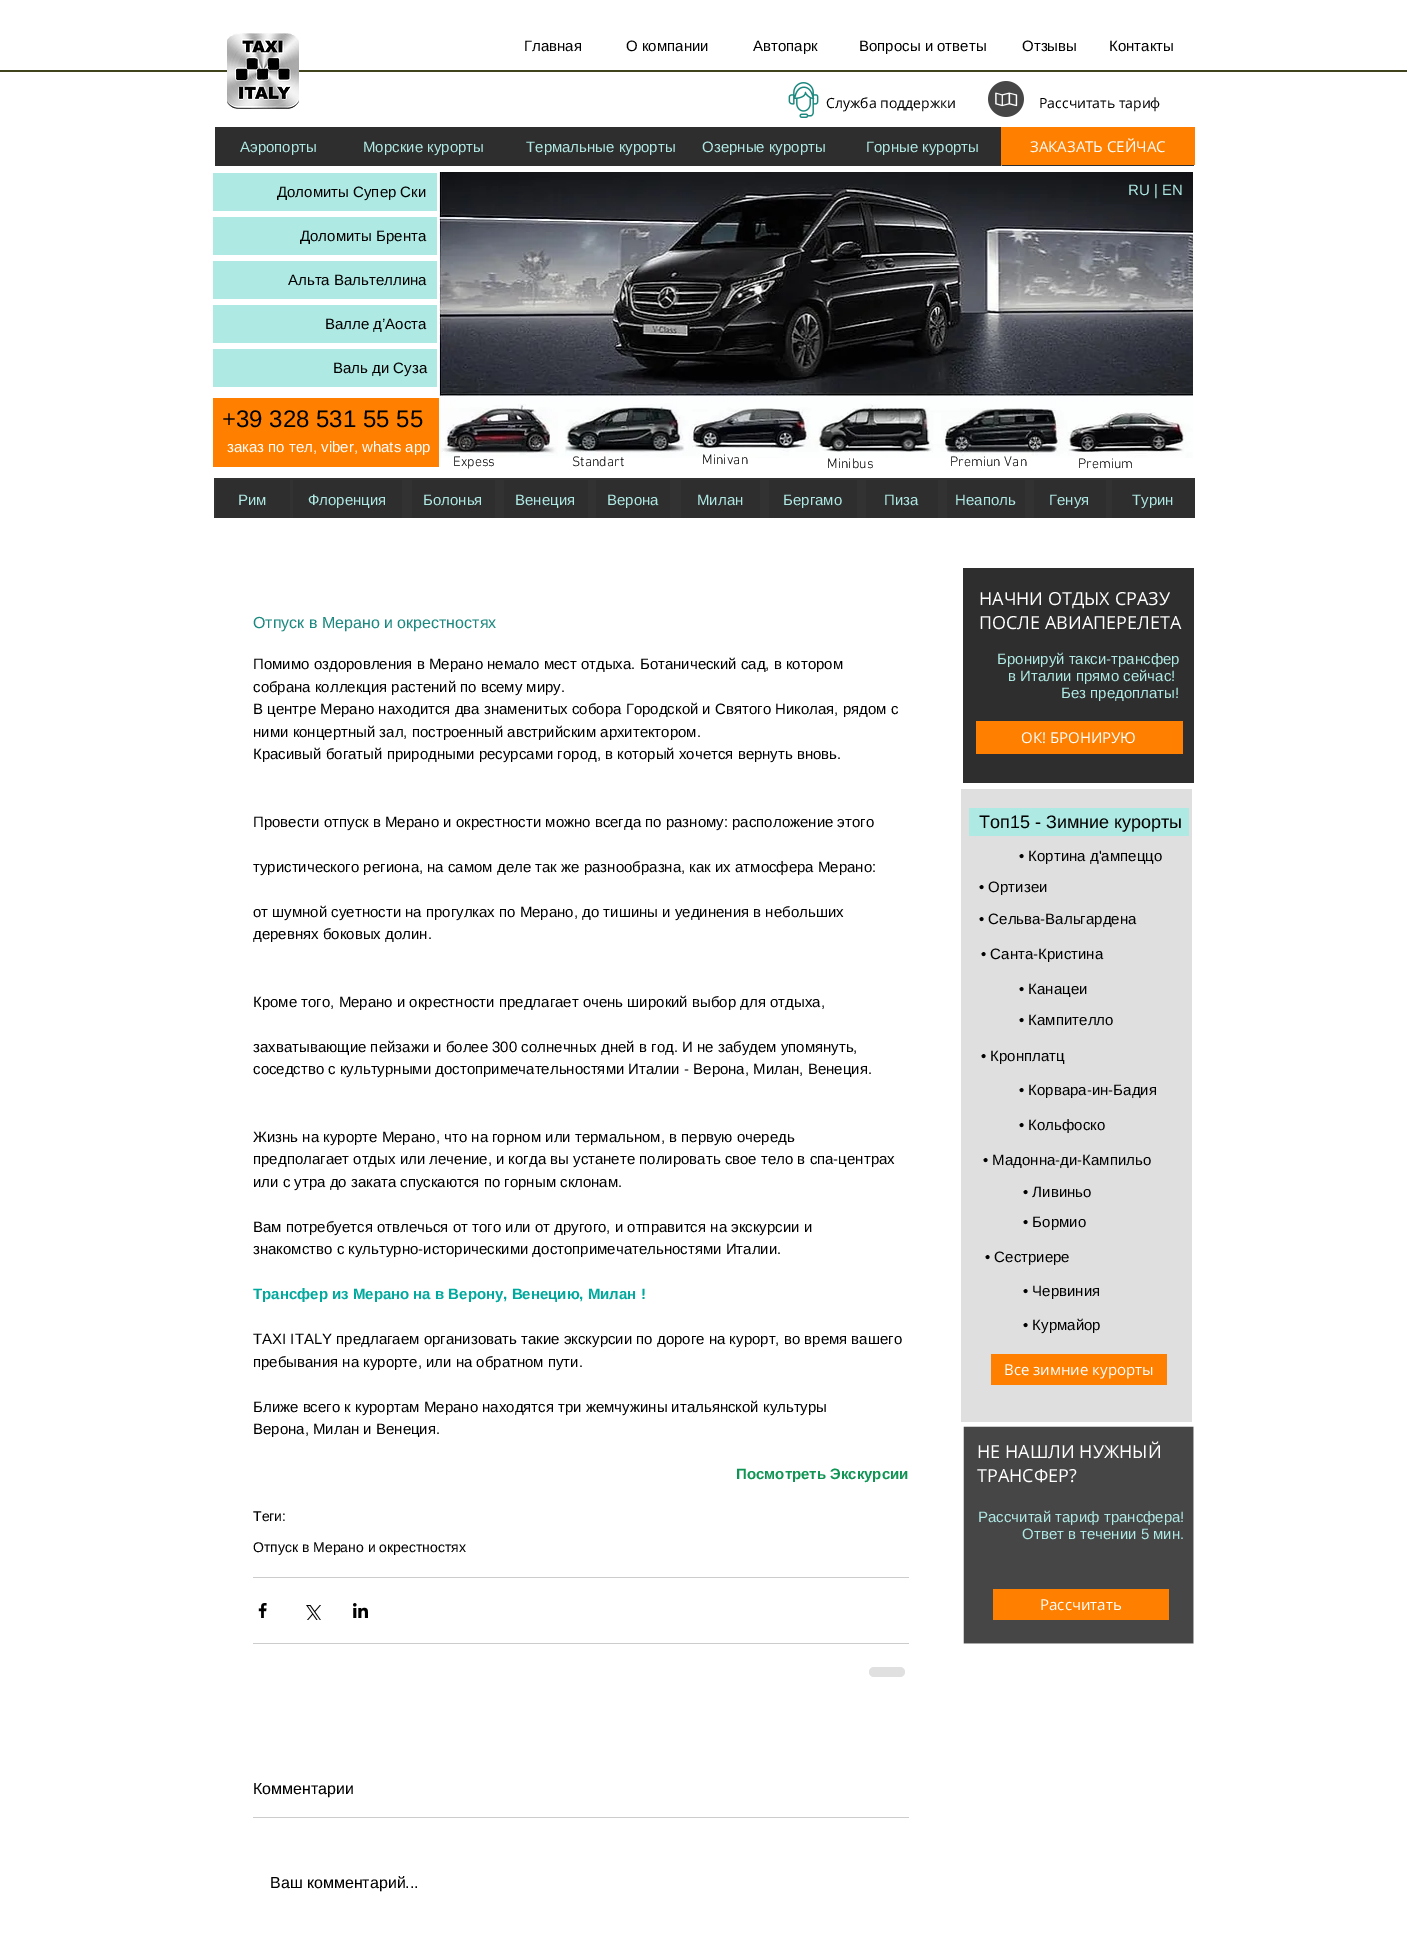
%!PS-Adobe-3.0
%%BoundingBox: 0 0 1407 1947
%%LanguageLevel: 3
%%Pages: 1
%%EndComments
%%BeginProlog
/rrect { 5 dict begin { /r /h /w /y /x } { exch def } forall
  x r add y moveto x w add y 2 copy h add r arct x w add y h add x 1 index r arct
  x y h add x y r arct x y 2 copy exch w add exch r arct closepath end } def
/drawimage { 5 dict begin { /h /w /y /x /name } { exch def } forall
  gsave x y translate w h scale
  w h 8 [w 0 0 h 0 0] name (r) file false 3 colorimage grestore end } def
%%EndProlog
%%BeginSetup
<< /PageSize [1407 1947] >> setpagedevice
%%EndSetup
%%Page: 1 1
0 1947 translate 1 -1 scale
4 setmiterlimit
1 setgray
0 0 1407 1947 rectfill
0.255 0.263 0.114 setrgbcolor
0 70 1407 2 rectfill
(images/1.raw) 227 33 72 76 drawimage
(images/2.raw) 788 82 31 36 drawimage
(images/3.raw) 988 81 36 36 drawimage
0.184 0.18 0.18 setrgbcolor
215 127 979 39 rectfill
1 0.502 0 setrgbcolor
1001 127 194 38 rectfill
0.694 0.659 0.514 setrgbcolor
1001 165 1 1 rectfill
(images/4.raw) 439 172 754 286 drawimage
0.196 setgray
214 478 981 40 rectfill
0.184 0.18 0.18 setrgbcolor
216 480 74 38 rectfill
293 480 109 38 rectfill
412 480 83 38 rectfill
504 480 84 38 rectfill
596 480 74 38 rectfill
681 480 79 38 rectfill
769 480 88 38 rectfill
866 480 72 38 rectfill
947 480 78 38 rectfill
1034 480 72 38 rectfill
1112 480 83 38 rectfill
0.682 0.914 0.894 setrgbcolor
213 173 224 38 rectfill
213 217 224 38 rectfill
213 261 224 38 rectfill
213 305 224 38 rectfill
213 349 224 38 rectfill
1 0.502 0 setrgbcolor
213 398 226 69 rectfill
0.8 setgray
253 1577 656 1 rectfill
(images/5.raw) 258 1603 9 15 drawimage
(images/6.raw) 306 1605 15 15 drawimage
(images/7.raw) 353 1603 15 15 drawimage
253 1643 656 1 rectfill
0.878 setgray
869 1667 36 10 5 rrect fill
0.8 setgray
253 1817 656 1 rectfill
0.184 0.18 0.18 setrgbcolor
963 568 231 215 rectfill
1 0.502 0 setrgbcolor
976 721 207 33 rectfill
0.878 0.875 0.875 setrgbcolor
961 789 231 633 rectfill
0.682 0.914 0.894 setrgbcolor
969 808 220 28 rectfill
1 0.502 0 setrgbcolor
991 1354 176 31 rectfill
0.278 0.275 0.275 setrgbcolor
963 1426 231 218 rectfill
1 setgray
newpath 1194 1426 moveto 1194 1644 lineto 963 1644 lineto 963 1426 lineto closepath stroke
1 0.502 0 setrgbcolor
993 1589 176 31 rectfill
/LiberationSans-Regular [15 0 0 -15 0 0] selectfont
0 setgray
524 51 moveto (Главная) show
626 51 moveto (О компании) show
753 51 moveto (Автопарк) show
859 51 moveto (Вопросы и ответы) show
1022 51 moveto (Отзывы) show
1109 51 moveto (Контакты) show
/OpenSans-Regular [14 0 0 -14 0 0] selectfont
826 108 moveto (Служба поддержки) show
1039 108 moveto (Рассчитать тариф) show
/LiberationSans-Regular [15 0 0 -15 0 0] selectfont
0.682 0.914 0.894 setrgbcolor
240 152 moveto (Аэропорты) show
363 152 moveto (Морские курорты) show
526 152 moveto (Термальные курорты) show
702 152 moveto (Озерные курорты) show
866 152 moveto (Горные курорты) show
/OpenSans-Regular [15 0 0 -15 0 0] selectfont
1 setgray
1030 152 moveto (ЗАКАЗАТЬ СЕЙЧАС) show
/LiberationSans-Regular [15 0 0 -15 0 0] selectfont
0.682 0.914 0.894 setrgbcolor
1128 195 moveto (RU | EN) show
/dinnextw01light-Light [14 0 0 -14 0 0] selectfont
0 setgray
453 466 moveto (Expess) show
572 466 moveto (Standart) show
702 464 moveto (Minivan) show
827 468 moveto (Minibus) show
950 466 moveto (Premiun Van) show
1078 468 moveto (Premium) show
/LiberationSans-Regular [15 0 0 -15 0 0] selectfont
0.682 0.914 0.894 setrgbcolor
238 505 moveto (Рим) show
308 505 moveto (Флоренция) show
423 505 moveto (Болонья) show
515 505 moveto (Венеция) show
607 505 moveto (Верона) show
697 505 moveto (Милан) show
783 505 moveto (Бергамо) show
884 505 moveto (Пиза) show
955 505 moveto (Неаполь) show
1049 505 moveto (Генуя) show
1132 505 moveto (Турин) show
0 setgray
277 197 moveto (Доломиты Супер Ски) show
300 241 moveto (Доломиты Брента) show
288 285 moveto (Альта Вальтеллина) show
325 329 moveto (Валле д’Аоста) show
333 373 moveto (Валь ди Суза) show
/LiberationSans-Regular [24 0 0 -24 0 0] selectfont
222 427 moveto (+39 328 531 55 55) show
/LiberationSans-Regular [15 0 0 -15 0 0] selectfont
1 setgray
227 452 moveto (заказ по тел, viber, whats app) show
/LiberationSans-Regular [16 0 0 -16 0 0] selectfont
0.102 0.533 0.494 setrgbcolor
253 628 moveto (Отпуск в Мерано и окрестностях) show
/LiberationSans-Regular [15 0 0 -15 0 0] selectfont
0 setgray
253 669 moveto (Помимо оздоровления в Мерано немало мест отдыха. Ботанический сад, в котором) show
253 692 moveto (собрана коллекция растений по всему миру.) show
253 714 moveto (В центре Мерано находится два знаменитых собора Городской и Святого Николая, рядом с) show
253 737 moveto (ними концертный зал, построенный австрийским архитектором.) show
253 759 moveto (Красивый богатый природными ресурсами город, в который хочется вернуть вновь.) show
253 827 moveto (Провести отпуск в Мерано и окрестности можно всегда по разному: расположение этого) show
253 872 moveto (туристического региона, на самом деле так же разнообразна, как их атмосфера Мерано:) show
253 917 moveto (от шумной суетности на прогулках по Мерано, до тишины и уединения в небольших) show
253 939 moveto (деревнях боковых долин.) show
253 1007 moveto (Кроме того, Мерано и окрестности предлагает очень широкий выбор для отдыха,) show
253 1052 moveto (захватывающие пейзажи и более 300 солнечных дней в год. И не забудем упомянуть,) show
253 1074 moveto (соседство с культурными достопримечательностями Италии - Верона, Милан, Венеция.) show
253 1142 moveto (Жизнь на курорте Мерано, что на горном или термальном, в первую очередь) show
253 1164 moveto (предполагает отдых или лечение, и когда вы устанете полировать свое тело в спа-центрах) show
253 1187 moveto (или с утра до заката спускаются по горным склонам.) show
253 1232 moveto (Вам потребуется отвлечься от того или от другого, и отправится на экскурсии и) show
253 1254 moveto (знакомство с культурно-историческими достопримечательностями Италии.) show
/LiberationSans-Bold [15 0 0 -15 0 0] selectfont
0 0.663 0.616 setrgbcolor
253 1299 moveto (Трансфер из Мерано на в Верону, Венецию, Милан !) show
/LiberationSans-Regular [15 0 0 -15 0 0] selectfont
0 setgray
253 1344 moveto (TAXI ITALY предлагаем организовать такие экскурсии по дороге на курорт, во время вашего) show
253 1367 moveto (пребывания на курорте, или на обратном пути.) show
253 1412 moveto (Ближе всего к курортам Мерано находятся три жемчужины итальянской культуры) show
253 1434 moveto (Верона, Милан и Венеция.) show
/LiberationSans-Bold [15 0 0 -15 0 0] selectfont
0.055 0.584 0.325 setrgbcolor
736 1479 moveto (Посмотреть Экскурсии) show
/LiberationSans-Regular [14 0 0 -14 0 0] selectfont
0 setgray
253 1521 moveto (Теги:) show
253 1552 moveto (Отпуск в Мерано и окрестностях) show
/LiberationSans-Regular [16 0 0 -16 0 0] selectfont
253 1794 moveto (Комментарии) show
270 1888 moveto (Ваш комментарий...) show
/OpenSans-Regular [18 0 0 -18 0 0] selectfont
1 setgray
979 605 moveto (НАЧНИ ОТДЫХ СРАЗУ) show
979 629 moveto (ПОСЛЕ АВИАПЕРЕЛЕТА) show
/LiberationSans-Regular [15 0 0 -15 0 0] selectfont
0.682 0.914 0.894 setrgbcolor
997 664 moveto (Бронируй такси-трансфер) show
1008 681 moveto (в Италии прямо сейчас!) show
1061 698 moveto (Без предоплаты!) show
/OpenSans-Regular [15 0 0 -15 0 0] selectfont
1 setgray
1021 743 moveto (ОК! БРОНИРУЮ) show
/LiberationSans-Regular [18 0 0 -18 0 0] selectfont
0 setgray
979 828 moveto (Топ15 - Зимние курорты) show
/LiberationSans-Regular [15 0 0 -15 0 0] selectfont
1019 861 moveto (• Кортина д'ампеццо) show
979 892 moveto (• Ортизеи) show
979 924 moveto (• Сельва-Вальгардена) show
981 959 moveto (• Санта-Кристина) show
1019 994 moveto (• Канацеи) show
1019 1025 moveto (• Кампителло) show
981 1061 moveto (• Кронплатц) show
1019 1095 moveto (• Корвара-ин-Бадия) show
1019 1130 moveto (• Кольфоско) show
983 1165 moveto (• Мадонна-ди-Кампильо) show
1023 1197 moveto (• Ливиньо) show
1023 1227 moveto (• Бормио) show
985 1262 moveto (• Сeстриере) show
1023 1296 moveto (• Червиния) show
1023 1330 moveto (• Курмайор) show
/OpenSans-Regular [15 0 0 -15 0 0] selectfont
1 setgray
1004 1375 moveto (Все зимние курорты) show
/OpenSans-Regular [18 0 0 -18 0 0] selectfont
977 1458 moveto (НЕ НАШЛИ НУЖНЫЙ) show
977 1482 moveto (ТРАНСФЕР?) show
/LiberationSans-Regular [15 0 0 -15 0 0] selectfont
0.682 0.914 0.894 setrgbcolor
978 1522 moveto (Рассчитай тариф трансфера!) show
1022 1539 moveto (Ответ в течении 5 мин.) show
/OpenSans-Regular [15 0 0 -15 0 0] selectfont
1 setgray
1040 1610 moveto (Рассчитать) show
showpage
%%EOF
